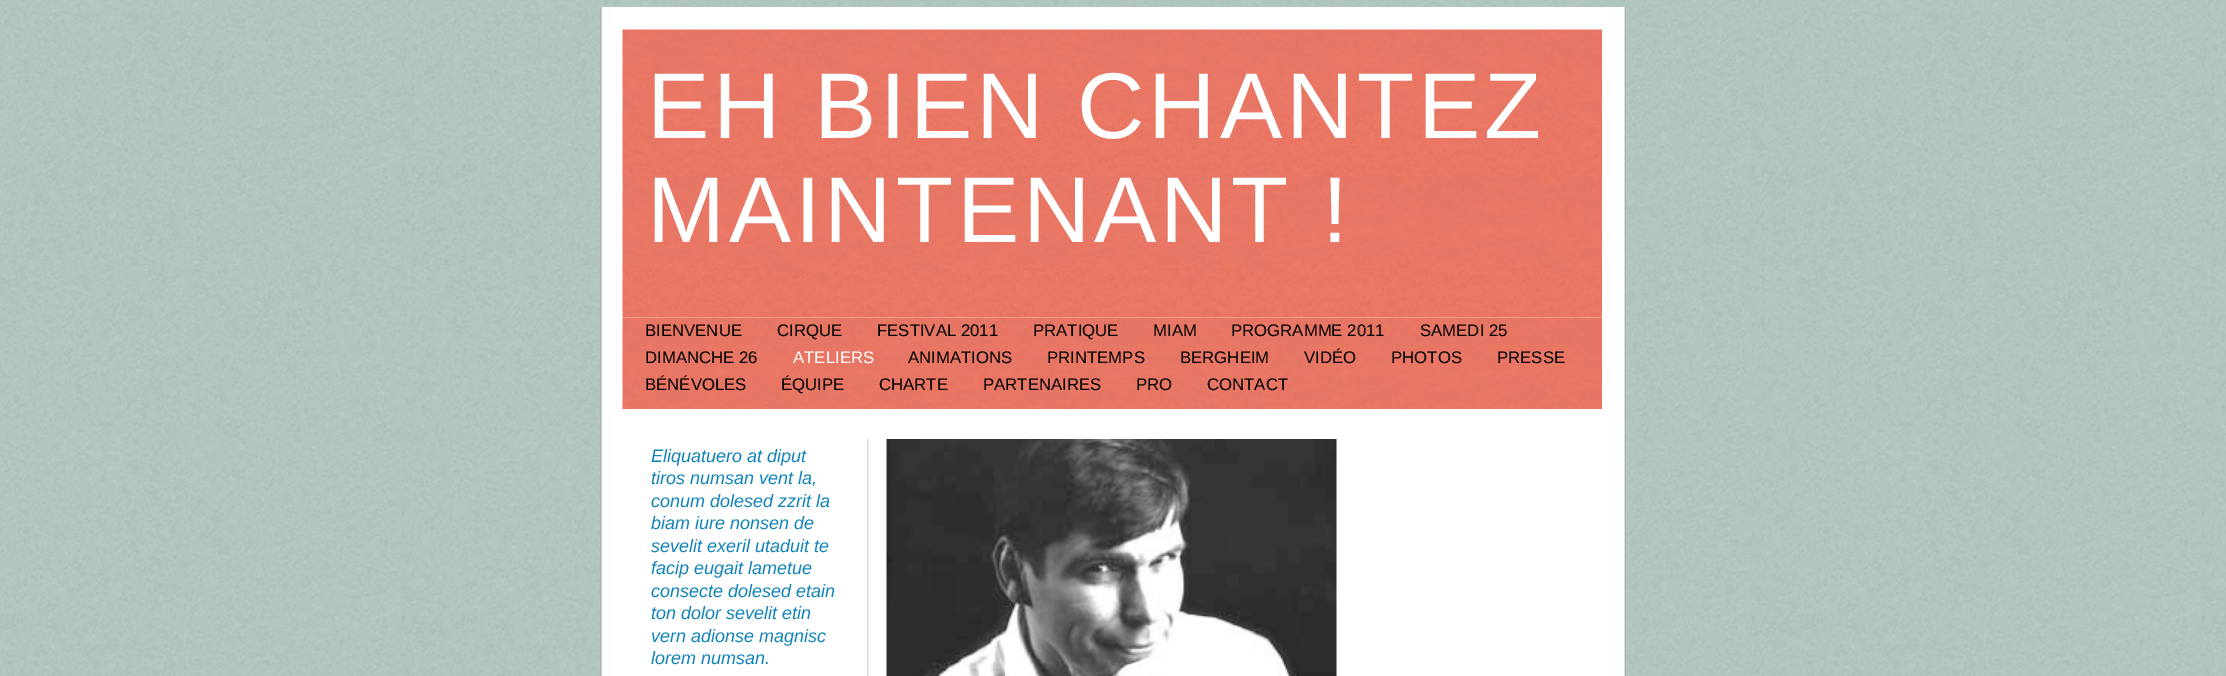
%!PS-Adobe-3.0
%%BoundingBox: 0 0 2226 676
%%LanguageLevel: 3
%%Pages: 1
%%EndComments
%%BeginProlog
/drawimage { 5 dict begin { /h /w /y /x /name } { exch def } forall
  gsave x y translate w h scale
  w h 8 [w 0 0 h 0 0] name (r) file false 3 colorimage grestore end } def
%%EndProlog
%%BeginSetup
<< /PageSize [2226 676] >> setpagedevice
%%EndSetup
%%Page: 1 1
0 676 translate 1 -1 scale
4 setmiterlimit
1 setgray
0 0 2226 676 rectfill
(images/1.raw) 0 0 2226 676 drawimage
(images/2.raw) 600 7 1026 669 drawimage
(images/4.raw) 622 317 980 92 drawimage
(images/3.raw) 622 29 980 289 drawimage
(images/5.raw) 867 439 2 237 drawimage
(images/6.raw) 886 439 451 237 drawimage
/LiberationSans-Regular [93.5 0 0 -93.5 0 0] selectfont
647 138 moveto 3.75 0 (EH BIEN CHANTEZ) ashow
647 242 moveto 3.75 0 (MAINTENANT !) ashow
/LiberationSans-Regular [16.75 0 0 -16.75 0 0] selectfont
0 setgray
645 336 moveto (BIENVENUE) show
777 336 moveto (CIRQUE) show
877 336 moveto (FESTIVAL 2011) show
1033 336 moveto (PRATIQUE) show
1153 336 moveto (MIAM) show
1231 336 moveto (PROGRAMME 2011) show
1420 336 moveto (SAMEDI 25) show
645 363 moveto (DIMANCHE 26) show
1 setgray
793 363 moveto (ATELIERS) show
0 setgray
908 363 moveto (ANIMATIONS) show
1047 363 moveto (PRINTEMPS) show
1180 363 moveto (BERGHEIM) show
1304 363 moveto (VIDÉO) show
1391 363 moveto (PHOTOS) show
1497 363 moveto (PRESSE) show
645 390 moveto (BÉNÉVOLES) show
781 390 moveto (ÉQUIPE) show
879 390 moveto (CHARTE) show
983 390 moveto (PARTENAIRES) show
1136 390 moveto (PRO) show
1207 390 moveto (CONTACT) show
/LiberationSans-Italic [18 0 0 -18 0 0] selectfont
0.071 0.518 0.729 setrgbcolor
651 462 moveto (Eliquatuero at diput) show
651 484 moveto (tiros numsan vent la,) show
651 507 moveto (conum dolesed zzrit la) show
651 529 moveto (biam iure nonsen de) show
651 552 moveto (sevelit exeril utaduit te) show
651 574 moveto (facip eugait lametue) show
651 597 moveto (consecte dolesed etain) show
651 619 moveto (ton dolor sevelit etin) show
651 642 moveto (vern adionse magnisc) show
651 664 moveto (lorem numsan.) show
showpage
%%EOF
